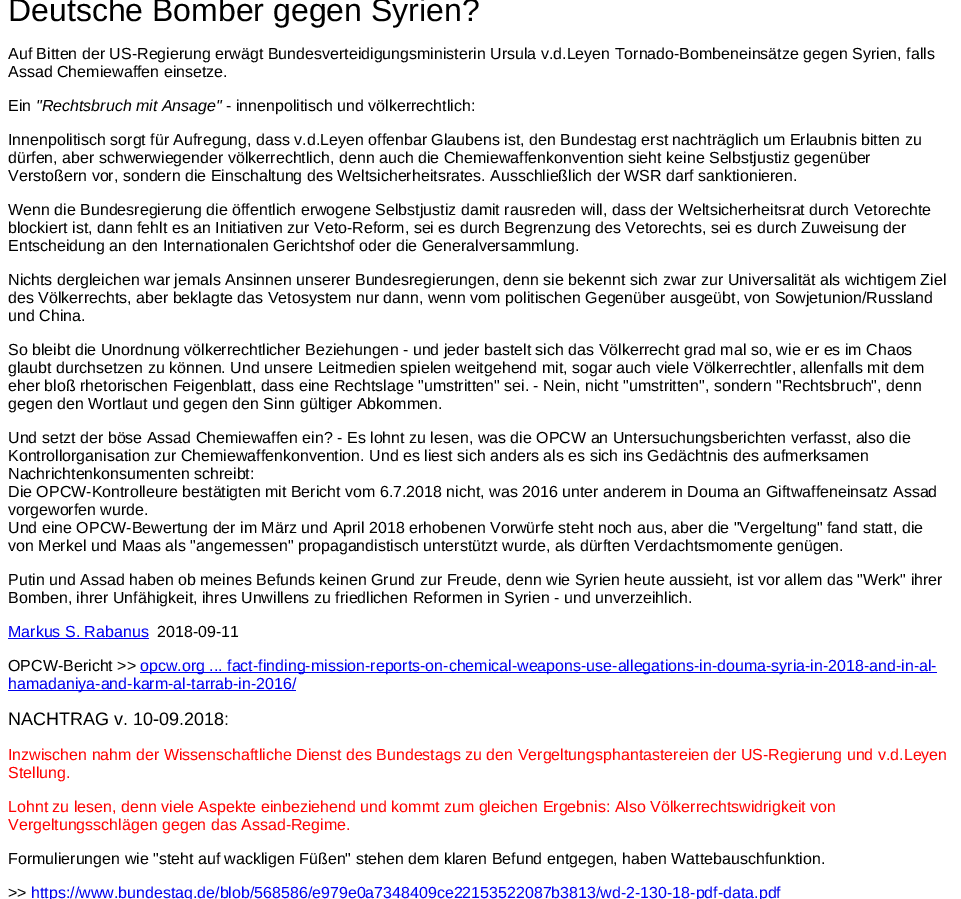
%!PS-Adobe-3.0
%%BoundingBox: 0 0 961 899
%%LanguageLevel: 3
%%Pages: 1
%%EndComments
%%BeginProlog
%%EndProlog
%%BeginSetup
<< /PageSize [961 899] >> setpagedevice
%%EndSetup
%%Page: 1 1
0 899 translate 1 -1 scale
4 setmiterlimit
1 setgray
0 0 961 899 rectfill
0 0 0.933 setrgbcolor
8 638 141 1 rectfill
140 672 797 1 rectfill
8 690 288 1 rectfill
/LiberationSans-Regular [32 0 0 -32 0 0] selectfont
0 setgray
8 21 moveto (Deutsche Bomber gegen Syrien?) show
/LiberationSans-Regular [16 0 0 -16 0 0] selectfont
8 59 moveto (Auf Bitten der US-Regierung erwägt Bundesverteidigungsministerin Ursula v.d.Leyen Tornado-Bombeneinsätze gegen Syrien, falls) show
8 77 moveto (Assad Chemiewaffen einsetze.) show
8 111 moveto (Ein) show
/LiberationSans-Italic [16 0 0 -16 0 0] selectfont
36 111 moveto ("Rechtsbruch mit Ansage") show
/LiberationSans-Regular [16 0 0 -16 0 0] selectfont
226 111 moveto (- innenpolitisch und völkerrechtlich:) show
8 145 moveto (Innenpolitisch sorgt für Aufregung, dass v.d.Leyen offenbar Glaubens ist, den Bundestag erst nachträglich um Erlaubnis bitten zu) show
8 163 moveto (dürfen, aber schwerwiegender völkerrechtlich, denn auch die Chemiewaffenkonvention sieht keine Selbstjustiz gegenüber) show
8 181 moveto (Verstoßern vor, sondern die Einschaltung des Weltsicherheitsrates. Ausschließlich der WSR darf sanktionieren.) show
8 215 moveto (Wenn die Bundesregierung die öffentlich erwogene Selbstjustiz damit rausreden will, dass der Weltsicherheitsrat durch Vetorechte) show
8 233 moveto (blockiert ist, dann fehlt es an Initiativen zur Veto-Reform, sei es durch Begrenzung des Vetorechts, sei es durch Zuweisung der) show
8 251 moveto (Entscheidung an den Internationalen Gerichtshof oder die Generalversammlung.) show
8 285 moveto (Nichts dergleichen war jemals Ansinnen unserer Bundesregierungen, denn sie bekennt sich zwar zur Universalität als wichtigem Ziel) show
8 303 moveto (des Völkerrechts, aber beklagte das Vetosystem nur dann, wenn vom politischen Gegenüber ausgeübt, von Sowjetunion/Russland) show
8 321 moveto (und China.) show
8 355 moveto (So bleibt die Unordnung völkerrechtlicher Beziehungen - und jeder bastelt sich das Völkerrecht grad mal so, wie er es im Chaos) show
8 373 moveto (glaubt durchsetzen zu können. Und unsere Leitmedien spielen weitgehend mit, sogar auch viele Völkerrechtler, allenfalls mit dem) show
8 391 moveto (eher bloß rhetorischen Feigenblatt, dass eine Rechtslage "umstritten" sei. - Nein, nicht "umstritten", sondern "Rechtsbruch", denn) show
8 409 moveto (gegen den Wortlaut und gegen den Sinn gültiger Abkommen.) show
8 443 moveto (Und setzt der böse Assad Chemiewaffen ein? - Es lohnt zu lesen, was die OPCW an Untersuchungsberichten verfasst, also die) show
8 461 moveto (Kontrollorganisation zur Chemiewaffenkonvention. Und es liest sich anders als es sich ins Gedächtnis des aufmerksamen) show
8 479 moveto (Nachrichtenkonsumenten schreibt:) show
8 497 moveto (Die OPCW-Kontrolleure bestätigten mit Bericht vom 6.7.2018 nicht, was 2016 unter anderem in Douma an Giftwaffeneinsatz Assad) show
8 515 moveto (vorgeworfen wurde.) show
8 533 moveto (Und eine OPCW-Bewertung der im März und April 2018 erhobenen Vorwürfe steht noch aus, aber die "Vergeltung" fand statt, die) show
8 551 moveto (von Merkel und Maas als "angemessen" propagandistisch unterstützt wurde, als dürften Verdachtsmomente genügen.) show
8 585 moveto (Putin und Assad haben ob meines Befunds keinen Grund zur Freude, denn wie Syrien heute aussieht, ist vor allem das "Werk" ihrer) show
8 603 moveto (Bomben, ihrer Unfähigkeit, ihres Unwillens zu friedlichen Reformen in Syrien - und unverzeihlich.) show
0 0 0.933 setrgbcolor
8 637 moveto (Markus S. Rabanus) show
0 setgray
157 637 moveto (2018-09-11) show
8 671 moveto (OPCW-Bericht >>) show
0 0 0.933 setrgbcolor
140 671 moveto (opcw.org ... fact-finding-mission-reports-on-chemical-weapons-use-allegations-in-douma-syria-in-2018-and-in-al-) show
8 689 moveto (hamadaniya-and-karm-al-tarrab-in-2016/) show
/LiberationSans-Regular [18 0 0 -18 0 0] selectfont
0 setgray
8 725 moveto (NACHTRAG v. 10-09.2018:) show
/LiberationSans-Regular [16 0 0 -16 0 0] selectfont
1 0 0 setrgbcolor
8 760 moveto (Inzwischen nahm der Wissenschaftliche Dienst des Bundestags zu den Vergeltungsphantastereien der US-Regierung und v.d.Leyen) show
8 778 moveto (Stellung.) show
8 812 moveto (Lohnt zu lesen, denn viele Aspekte einbeziehend und kommt zum gleichen Ergebnis: Also Völkerrechtswidrigkeit von) show
8 830 moveto (Vergeltungsschlägen gegen das Assad-Regime.) show
0 setgray
8 864 moveto (Formulierungen wie "steht auf wackligen Füßen" stehen dem klaren Befund entgegen, haben Wattebauschfunktion.) show
8 898 moveto (>>) show
0 0 0.933 setrgbcolor
31 898 moveto (https://www.bundestag.de/blob/568586/e979e0a7348409ce22153522087b3813/wd-2-130-18-pdf-data.pdf) show
showpage
%%EOF
